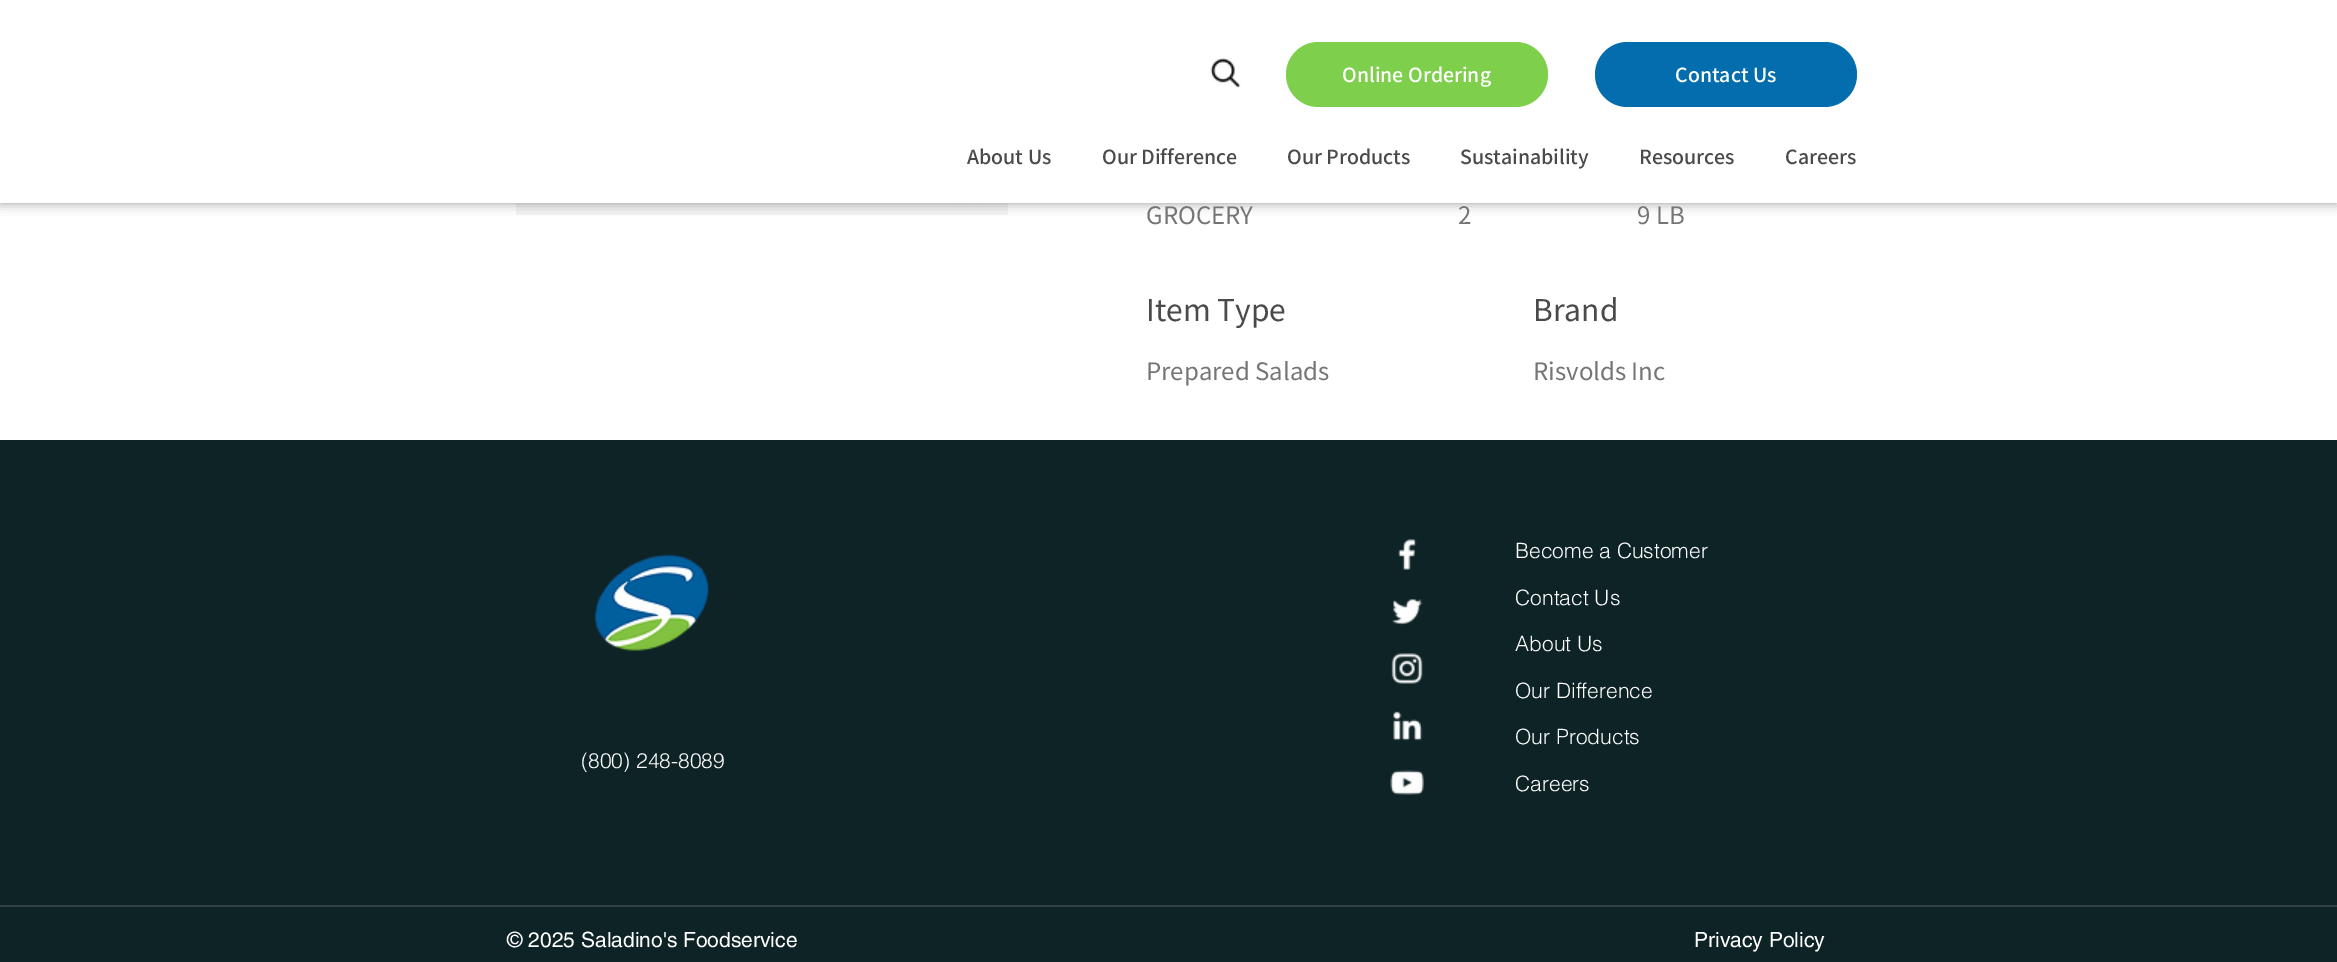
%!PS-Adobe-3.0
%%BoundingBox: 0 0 2337 962
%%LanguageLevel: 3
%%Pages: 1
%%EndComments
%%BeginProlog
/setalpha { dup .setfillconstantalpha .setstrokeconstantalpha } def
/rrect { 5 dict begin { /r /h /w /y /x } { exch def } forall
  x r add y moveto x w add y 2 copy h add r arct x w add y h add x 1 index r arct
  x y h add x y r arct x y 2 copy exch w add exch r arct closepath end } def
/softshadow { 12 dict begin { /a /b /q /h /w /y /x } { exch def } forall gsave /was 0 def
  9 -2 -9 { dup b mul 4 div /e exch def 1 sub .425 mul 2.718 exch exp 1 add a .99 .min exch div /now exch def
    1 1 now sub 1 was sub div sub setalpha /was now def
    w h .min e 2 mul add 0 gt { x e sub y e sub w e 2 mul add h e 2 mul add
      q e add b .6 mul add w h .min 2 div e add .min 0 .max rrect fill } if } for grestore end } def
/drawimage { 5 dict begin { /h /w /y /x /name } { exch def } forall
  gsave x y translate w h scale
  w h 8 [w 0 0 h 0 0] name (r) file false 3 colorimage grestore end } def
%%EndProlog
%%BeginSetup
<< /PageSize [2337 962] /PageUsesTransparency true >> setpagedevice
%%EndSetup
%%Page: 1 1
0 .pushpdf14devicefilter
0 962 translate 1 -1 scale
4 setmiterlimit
1 setgray
0 0 2337 962 rectfill
(images/2.raw) 516 203 492 12 drawimage
0 setgray
0 0 2337 203 0 6 0.4 softshadow
1 setgray
0 0 2337 203 rectfill
(images/1.raw) 1210 58 31 30 drawimage
0.494 0.812 0.294 setrgbcolor
1286 42 262 65 32.5 rrect fill
0.012 0.427 0.678 setrgbcolor
1595 42 262 65 32.5 rrect fill
0.055 0.137 0.149 setrgbcolor
0 440 2337 522 rectfill
(images/3.raw) 1398 539 19 31 drawimage
(images/4.raw) 1392 599 31 26 drawimage
(images/5.raw) 1391 653 32 31 drawimage
(images/6.raw) 1393 711 30 30 drawimage
(images/7.raw) 1390 770 34 25 drawimage
(images/8.raw) 594 554 116 97 drawimage
0.196 0.255 0.263 setrgbcolor
0 905 2337 2 rectfill
/NotoSansJP-Medium [19.5 0 0 -19.5 0 0] selectfont
1 setgray
1342 82 moveto (Online Ordering) show
1675 82 moveto (Contact Us) show
0.29 setgray
967 164 moveto (About Us) show
1102 164 moveto (Our Difference) show
1287 164 moveto (Our Products) show
1460 164 moveto (Sustainability) show
1639 164 moveto (Resources) show
1785 164 moveto (Careers) show
/NotoSansJP-Regular [24 0 0 -24 0 0] selectfont
0.459 setgray
1146 224 moveto (GROCERY) show
1458 224 moveto (2) show
1637 224 moveto (9 LB) show
/NotoSansJP-Regular [30 0 0 -30 0 0] selectfont
0.29 setgray
1146 321 moveto (Item Type) show
1533 321 moveto (Brand) show
/NotoSansJP-Regular [24 0 0 -24 0 0] selectfont
0.459 setgray
1146 380 moveto (Prepared Salads) show
1533 380 moveto (Risvolds Inc) show
/helvetica-Light [21 0 0 -21 0 0] selectfont
1 setgray
1515 558 moveto (Become a Customer) show
1515 605 moveto (Contact Us) show
1515 651 moveto (About Us) show
1515 698 moveto (Our Difference) show
1515 744 moveto (Our Products) show
581 768 moveto (\(800\) 248-8089) show
1515 791 moveto (Careers) show
/helvetica-Regular [21 0 0 -21 0 0] selectfont
507 947 moveto (© 2025 Saladino's Foodservice) show
1694 947 moveto (Privacy Policy) show
.poppdf14devicefilter showpage
%%EOF
